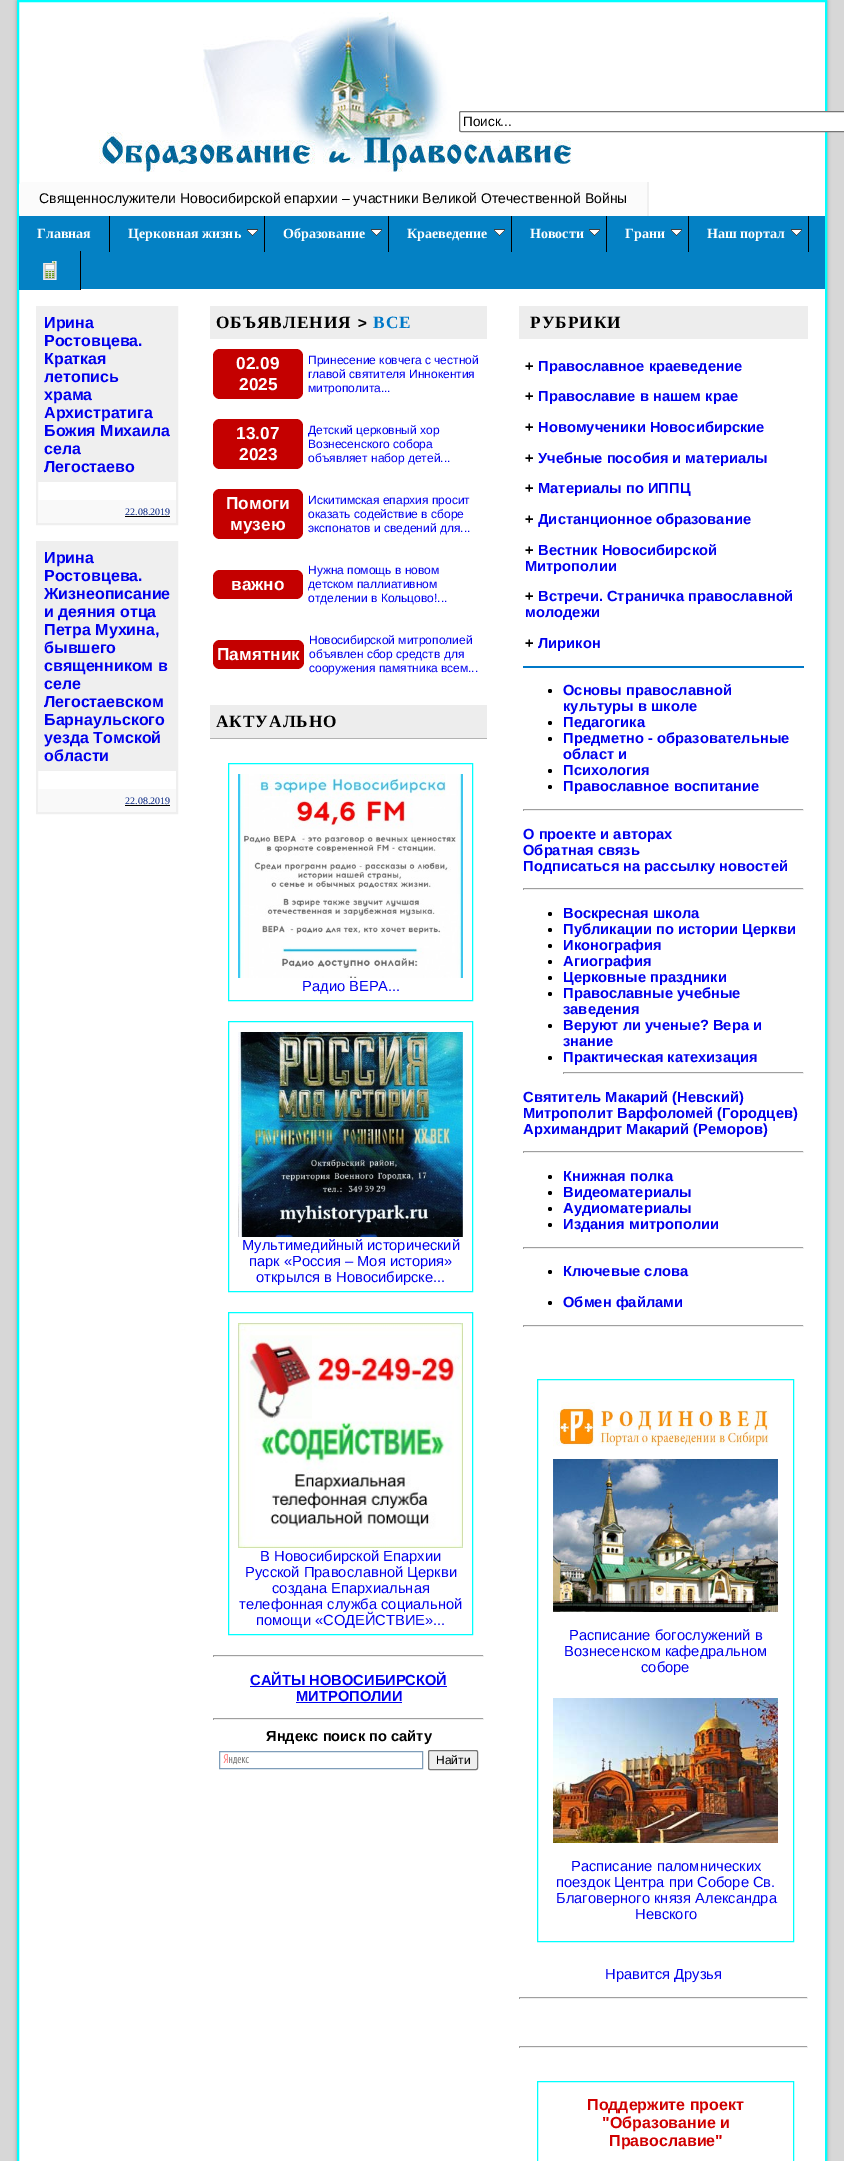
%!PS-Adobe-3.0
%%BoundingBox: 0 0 844 2161
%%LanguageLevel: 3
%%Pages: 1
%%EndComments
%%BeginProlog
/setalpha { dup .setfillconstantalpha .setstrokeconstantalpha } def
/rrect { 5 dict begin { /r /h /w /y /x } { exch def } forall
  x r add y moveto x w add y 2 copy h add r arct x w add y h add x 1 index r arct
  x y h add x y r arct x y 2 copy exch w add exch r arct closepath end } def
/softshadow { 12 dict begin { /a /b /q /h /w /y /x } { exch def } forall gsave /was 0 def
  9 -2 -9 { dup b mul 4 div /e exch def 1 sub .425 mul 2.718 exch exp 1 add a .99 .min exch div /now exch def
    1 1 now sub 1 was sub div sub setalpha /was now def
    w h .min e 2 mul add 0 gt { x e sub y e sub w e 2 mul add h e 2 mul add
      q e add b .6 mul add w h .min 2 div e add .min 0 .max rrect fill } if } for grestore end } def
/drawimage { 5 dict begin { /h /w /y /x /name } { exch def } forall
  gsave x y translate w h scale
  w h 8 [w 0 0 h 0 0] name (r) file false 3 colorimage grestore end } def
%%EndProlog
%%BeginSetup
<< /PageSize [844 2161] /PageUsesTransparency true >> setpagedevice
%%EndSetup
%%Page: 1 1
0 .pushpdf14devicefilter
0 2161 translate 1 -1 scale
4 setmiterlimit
0.843 setgray
0 0 844 2161 rectfill
0 setgray
17 1 810 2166 0 2 0.3 softshadow
1 setgray
newpath 18 1 moveto 826 1 lineto 826 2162 lineto 18 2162 lineto closepath gsave fill grestore
0 1 1 setrgbcolor
2 setlinewidth
stroke
(images/1.raw) 99 12 472 160 drawimage
1 setgray
459.5 111.5 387 20 1.5 rrect gsave fill grestore
0.463 setgray
1 setlinewidth
stroke
0.984 setgray
19 182 630 34 4 rrect fill
0.941 setgray
647 182 2 34 rectfill
0.016 0.506 0.769 setrgbcolor
19 216 806 73 rectfill
0 setgray
109 216 1 36 rectfill
264 216 1 36 rectfill
(images/2.raw) 247 229 11 7 drawimage
388 216 1 36 rectfill
(images/2.raw) 371 229 11 7 drawimage
511 216 1 36 rectfill
(images/2.raw) 494 229 11 7 drawimage
606 216 1 36 rectfill
(images/2.raw) 589 229 11 7 drawimage
688 216 1 36 rectfill
(images/2.raw) 671 229 11 7 drawimage
808 216 1 36 rectfill
(images/2.raw) 791 229 11 7 drawimage
0.016 0.506 0.769 setrgbcolor
19 289 61 1 rectfill
0 setgray
80 251 1 39 rectfill
(images/3.raw) 43 261 14 19 drawimage
0.937 setgray
2 setlinewidth
37 307 140 217 rectstroke
38 308 138 174 rectfill
0.976 setgray
38 500 138 23 rectfill
0 setgray
125 516 45 1 rectfill
0.937 setgray
37 542 140 271 rectstroke
38 543 138 228 rectfill
0.976 setgray
38 789 138 23 rectfill
0 setgray
125 805 45 1 rectfill
0.929 setgray
210 306 277 33 rectfill
0.769 0 0 setrgbcolor
213 349 90 50 7 rrect fill
213 419 90 50 7 rrect fill
213 489 90 50 7 rrect fill
213 570 90 29 7 rrect fill
213 640 91 29 7 rrect fill
0.702 setgray
210 738 277 1 rectfill
0.929 setgray
210 705 277 33 rectfill
0 1 1 setrgbcolor
1 setlinewidth
228.5 763.5 244 237 rectstroke
(images/4.raw) 238 774 225 204 drawimage
228.5 1021.5 244 270 rectstroke
(images/5.raw) 238 1032 225 205 drawimage
228.5 1312.5 244 322 rectstroke
(images/6.raw) 238 1323 225 225 drawimage
0.624 setgray
213 1655 271 1 rectfill
0.933 setgray
483 1655 1 2 rectfill
213 1656 271 1 rectfill
0.624 setgray
213 1655 1 2 rectfill
0 0 0.933 setrgbcolor
250 1686 197 1 rectfill
296 1702 106 1 rectfill
0.624 setgray
213 1718 271 1 rectfill
0.933 setgray
483 1718 1 2 rectfill
213 1719 271 1 rectfill
0.624 setgray
213 1718 1 2 rectfill
(images/7.raw) 223 1754 26 11 drawimage
0.498 0.616 0.725 setrgbcolor
219.5 1751.5 203 17 rectstroke
0.937 setgray
428.5 1750.5 49 19 1.5 rrect gsave fill grestore
0.463 setgray
stroke
0.929 setgray
519 306 289 33 rectfill
0 0.471 0.784 setrgbcolor
523 666 281 2 rectfill
0 setgray
newpath 550 691 2 0 360 arc closepath fill
newpath 550 723 2 0 360 arc closepath fill
newpath 550 739 2 0 360 arc closepath fill
newpath 550 771 2 0 360 arc closepath fill
newpath 550 787 2 0 360 arc closepath fill
0.624 setgray
523 809 281 1 rectfill
0.933 setgray
803 809 1 2 rectfill
523 810 281 1 rectfill
0.624 setgray
523 809 1 2 rectfill
523 888 281 1 rectfill
0.933 setgray
803 888 1 2 rectfill
523 889 281 1 rectfill
0.624 setgray
523 888 1 2 rectfill
0 setgray
newpath 550 914 2 0 360 arc closepath fill
newpath 550 930 2 0 360 arc closepath fill
newpath 550 946 2 0 360 arc closepath fill
newpath 550 962 2 0 360 arc closepath fill
newpath 550 978 2 0 360 arc closepath fill
newpath 550 994 2 0 360 arc closepath fill
newpath 550 1026 2 0 360 arc closepath fill
newpath 550 1058 2 0 360 arc closepath fill
0.624 setgray
563 1072 241 1 rectfill
0.933 setgray
803 1072 1 2 rectfill
563 1073 241 1 rectfill
0.624 setgray
563 1072 1 2 rectfill
523 1151 281 1 rectfill
0.933 setgray
803 1151 1 2 rectfill
523 1152 281 1 rectfill
0.624 setgray
523 1151 1 2 rectfill
0 setgray
newpath 550 1177 2 0 360 arc closepath fill
newpath 550 1193 2 0 360 arc closepath fill
newpath 550 1209 2 0 360 arc closepath fill
newpath 550 1225 2 0 360 arc closepath fill
0.624 setgray
523 1247 281 1 rectfill
0.933 setgray
803 1247 1 2 rectfill
523 1248 281 1 rectfill
0.624 setgray
523 1247 1 2 rectfill
0 setgray
newpath 550 1272 2 0 360 arc closepath fill
newpath 550 1303 2 0 360 arc closepath fill
0.624 setgray
523 1325 281 1 rectfill
0.933 setgray
803 1325 1 2 rectfill
523 1326 281 1 rectfill
0.624 setgray
523 1325 1 2 rectfill
0 1 1 setrgbcolor
537.5 1379.5 256 562 rectstroke
(images/8.raw) 553 1402 216 45 drawimage
(images/9.raw) 553 1459 225 153 drawimage
(images/10.raw) 553 1698 225 145 drawimage
0.624 setgray
519 1997 289 1 rectfill
0.933 setgray
807 1997 1 2 rectfill
519 1998 289 1 rectfill
0.624 setgray
519 1997 1 2 rectfill
519 2046 289 1 rectfill
0.933 setgray
807 2046 1 2 rectfill
519 2047 289 1 rectfill
0.624 setgray
519 2046 1 2 rectfill
0 1 1 setrgbcolor
537.5 2081.5 256 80 rectstroke
/LiberationSans-Regular [13.5 0 0 -13.5 0 0] selectfont
0 setgray
463 126 moveto (Поиск...) show
/LiberationSans-Regular [14 0 0 -14 0 0] selectfont
39 203 moveto (Священнослужители Новосибирской епархии – участники Великой Отечественной Войны) show
/LiberationSerif-Bold [14 0 0 -14 0 0] selectfont
1 setgray
37 238 moveto (Главная) show
128 238 moveto (Церковная жизнь) show
283 238 moveto (Образование) show
407 238 moveto (Краеведение) show
530 238 moveto (Новости) show
625 238 moveto (Грани) show
707 238 moveto (Наш портал) show
/LiberationSans-Bold [16 0 0 -16 0 0] selectfont
0 0 0.933 setrgbcolor
44 328 moveto (Ирина) show
44 346 moveto (Ростовцева.) show
44 364 moveto (Краткая) show
44 382 moveto (летопись) show
44 400 moveto (храма) show
44 418 moveto (Архистратига) show
44 436 moveto (Божия Михаила) show
44 454 moveto (села) show
44 472 moveto (Легостаево) show
/LiberationSerif-Regular [10 0 0 -10 0 0] selectfont
0 0.125 0.502 setrgbcolor
125 515 moveto (22.08.2019) show
/LiberationSans-Bold [16 0 0 -16 0 0] selectfont
0 0 0.933 setrgbcolor
44 563 moveto (Ирина) show
44 581 moveto (Ростовцева.) show
44 599 moveto (Жизнеописание) show
44 617 moveto (и деяния отца) show
44 635 moveto (Петра Мухина,) show
44 653 moveto (бывшего) show
44 671 moveto (священником в) show
44 689 moveto (селе) show
44 707 moveto (Легостаевском) show
44 725 moveto (Барнаульского) show
44 743 moveto (уезда Томской) show
44 761 moveto (области) show
/LiberationSerif-Regular [10 0 0 -10 0 0] selectfont
0 0.125 0.502 setrgbcolor
125 804 moveto (22.08.2019) show
/LiberationSerif-Bold [17.25 0 0 -17.25 0 0] selectfont
0 setgray
216 328 moveto 1 0 (ОБЪЯВЛЕНИЯ) ashow
/Caladea-Bold [17.25 0 0 -17.25 0 0] selectfont
357 328 moveto 1 0 (>) ashow
/LiberationSerif-Bold [17.25 0 0 -17.25 0 0] selectfont
0 0.471 0.784 setrgbcolor
373 328 moveto 1 0 (ВСЕ) ashow
/LiberationSans-Bold [17.25 0 0 -17.25 0 0] selectfont
1 setgray
236 369 moveto (02.09) show
239 390 moveto (2025) show
/LiberationSans-Regular [12 0 0 -12 0 0] selectfont
0 0 0.933 setrgbcolor
308 364 moveto (Принесение ковчега с честной) show
308 378 moveto (главой святителя Иннокентия) show
308 392 moveto (митрополита...) show
/LiberationSans-Bold [17.25 0 0 -17.25 0 0] selectfont
1 setgray
236 439 moveto (13.07) show
239 460 moveto (2023) show
/LiberationSans-Regular [12 0 0 -12 0 0] selectfont
0 0 0.933 setrgbcolor
308 434 moveto (Детский церковный хор) show
308 448 moveto (Вознесенского собора) show
308 462 moveto (объявляет набор детей...) show
/LiberationSans-Bold [17.25 0 0 -17.25 0 0] selectfont
1 setgray
226 509 moveto (Помоги) show
230 530 moveto (музею) show
/LiberationSans-Regular [12 0 0 -12 0 0] selectfont
0 0 0.933 setrgbcolor
308 504 moveto (Искитимская епархия просит) show
308 518 moveto (оказать содействие в сборе) show
308 532 moveto (экспонатов и сведений для...) show
/LiberationSans-Bold [17.25 0 0 -17.25 0 0] selectfont
1 setgray
231 590 moveto (важно) show
/LiberationSans-Regular [12 0 0 -12 0 0] selectfont
0 0 0.933 setrgbcolor
308 574 moveto (Нужна помощь в новом) show
308 588 moveto (детском паллиативном) show
308 602 moveto (отделении в Кольцово!...) show
/LiberationSans-Bold [17.25 0 0 -17.25 0 0] selectfont
1 setgray
217 660 moveto (Памятник) show
/LiberationSans-Regular [12 0 0 -12 0 0] selectfont
0 0 0.933 setrgbcolor
309 644 moveto (Новосибирской митрополией) show
309 658 moveto (объявлен сбор средств для) show
309 672 moveto (сооружения памятника всем...) show
/LiberationSerif-Bold [17.25 0 0 -17.25 0 0] selectfont
0 setgray
216 727 moveto 1 0 (АКТУАЛЬНО) ashow
/LiberationSans-Regular [14.7 0 0 -14.7 0 0] selectfont
0 0 0.933 setrgbcolor
302 991 moveto (Радио ВЕРА...) show
242 1250 moveto (Мультимедийный исторический) show
249 1266 moveto (парк «Россия – Моя история») show
256 1282 moveto (открылся в Новосибирске...) show
260 1561 moveto (В Новосибирской Епархии) show
245 1577 moveto (Русской Православной Церкви) show
272 1593 moveto (создана Епархиальная) show
239 1609 moveto (телефонная служба социальной) show
256 1625 moveto (помощи «СОДЕЙСТВИЕ»...) show
/LiberationSans-Bold [14.7 0 0 -14.7 0 0] selectfont
250 1685 moveto (САЙТЫ НОВОСИБИРСКОЙ) show
296 1701 moveto (МИТРОПОЛИИ) show
0 setgray
266 1741 moveto (Яндекс поиск по сайту) show
/LiberationSans-Regular [12 0 0 -12 0 0] selectfont
436 1764 moveto (Найти) show
/LiberationSerif-Bold [17.25 0 0 -17.25 0 0] selectfont
530 328 moveto 1 0 (РУБРИКИ) ashow
/LiberationSans-Bold [14.7 0 0 -14.7 0 0] selectfont
525 371 moveto (+) show
0 0 0.933 setrgbcolor
538 371 moveto (Православное краеведение) show
0 setgray
525 401 moveto (+) show
0 0 0.933 setrgbcolor
538 401 moveto (Православие в нашем крае) show
0 setgray
525 432 moveto (+) show
0 0 0.933 setrgbcolor
538 432 moveto (Новомученики Новосибирские) show
0 setgray
525 463 moveto (+) show
0 0 0.933 setrgbcolor
538 463 moveto (Учебные пособия и материалы) show
0 setgray
525 493 moveto (+) show
0 0 0.933 setrgbcolor
538 493 moveto (Материалы по ИППЦ) show
0 setgray
525 524 moveto (+) show
0 0 0.933 setrgbcolor
538 524 moveto (Дистанционное образование) show
0 setgray
525 555 moveto (+) show
0 0 0.933 setrgbcolor
538 555 moveto (Вестник Новосибирской) show
525 571 moveto (Митрополии) show
0 setgray
525 601 moveto (+) show
0 0 0.933 setrgbcolor
538 601 moveto (Встречи. Страничка православной) show
525 617 moveto (молодежи) show
0 setgray
525 648 moveto (+) show
0 0 0.933 setrgbcolor
538 648 moveto (Лирикон) show
563 695 moveto (Основы православной) show
563 711 moveto (культуры в школе) show
563 727 moveto (Педагогика) show
563 743 moveto (Предметно - образовательные) show
563 759 moveto (област и) show
563 775 moveto (Психология) show
563 791 moveto (Православное воспитание) show
523 839 moveto (О проекте и авторах) show
523 855 moveto (Обратная связь) show
523 871 moveto (Подписаться на рассылку новостей) show
563 918 moveto (Воскресная школа) show
563 934 moveto (Публикации по истории Церкви) show
563 950 moveto (Иконография) show
563 966 moveto (Агиография) show
563 982 moveto (Церковные праздники) show
563 998 moveto (Православные учебные) show
563 1014 moveto (заведения) show
563 1030 moveto (Веруют ли ученые? Вера и) show
563 1046 moveto (знание) show
563 1062 moveto (Практическая катехизация) show
523 1102 moveto (Святитель Макарий \(Невский\)) show
523 1118 moveto (Митрополит Варфоломей \(Городцев\)) show
523 1134 moveto (Архимандрит Макарий \(Реморов\)) show
563 1181 moveto (Книжная полка) show
563 1197 moveto (Видеоматериалы) show
563 1213 moveto (Аудиоматериалы) show
563 1229 moveto (Издания митрополии) show
563 1276 moveto (Ключевые слова) show
563 1307 moveto (Обмен файлами) show
/LiberationSans-Regular [14.7 0 0 -14.7 0 0] selectfont
569 1640 moveto (Расписание богослужений в) show
564 1656 moveto (Вознесенском кафедральном) show
641 1672 moveto (соборе) show
571 1871 moveto (Расписание паломнических) show
556 1887 moveto (поездок Центра при Соборе Св.) show
556 1903 moveto (Благоверного князя Александра) show
635 1919 moveto (Невского) show
605 1979 moveto (Нравится Друзья) show
/LiberationSans-Bold [16 0 0 -16 0 0] selectfont
0.816 0 0 setrgbcolor
587 2110 moveto (Поддержите проект) show
602 2128 moveto ("Образование и) show
609 2146 moveto (Православие") show
.poppdf14devicefilter showpage
%%EOF
